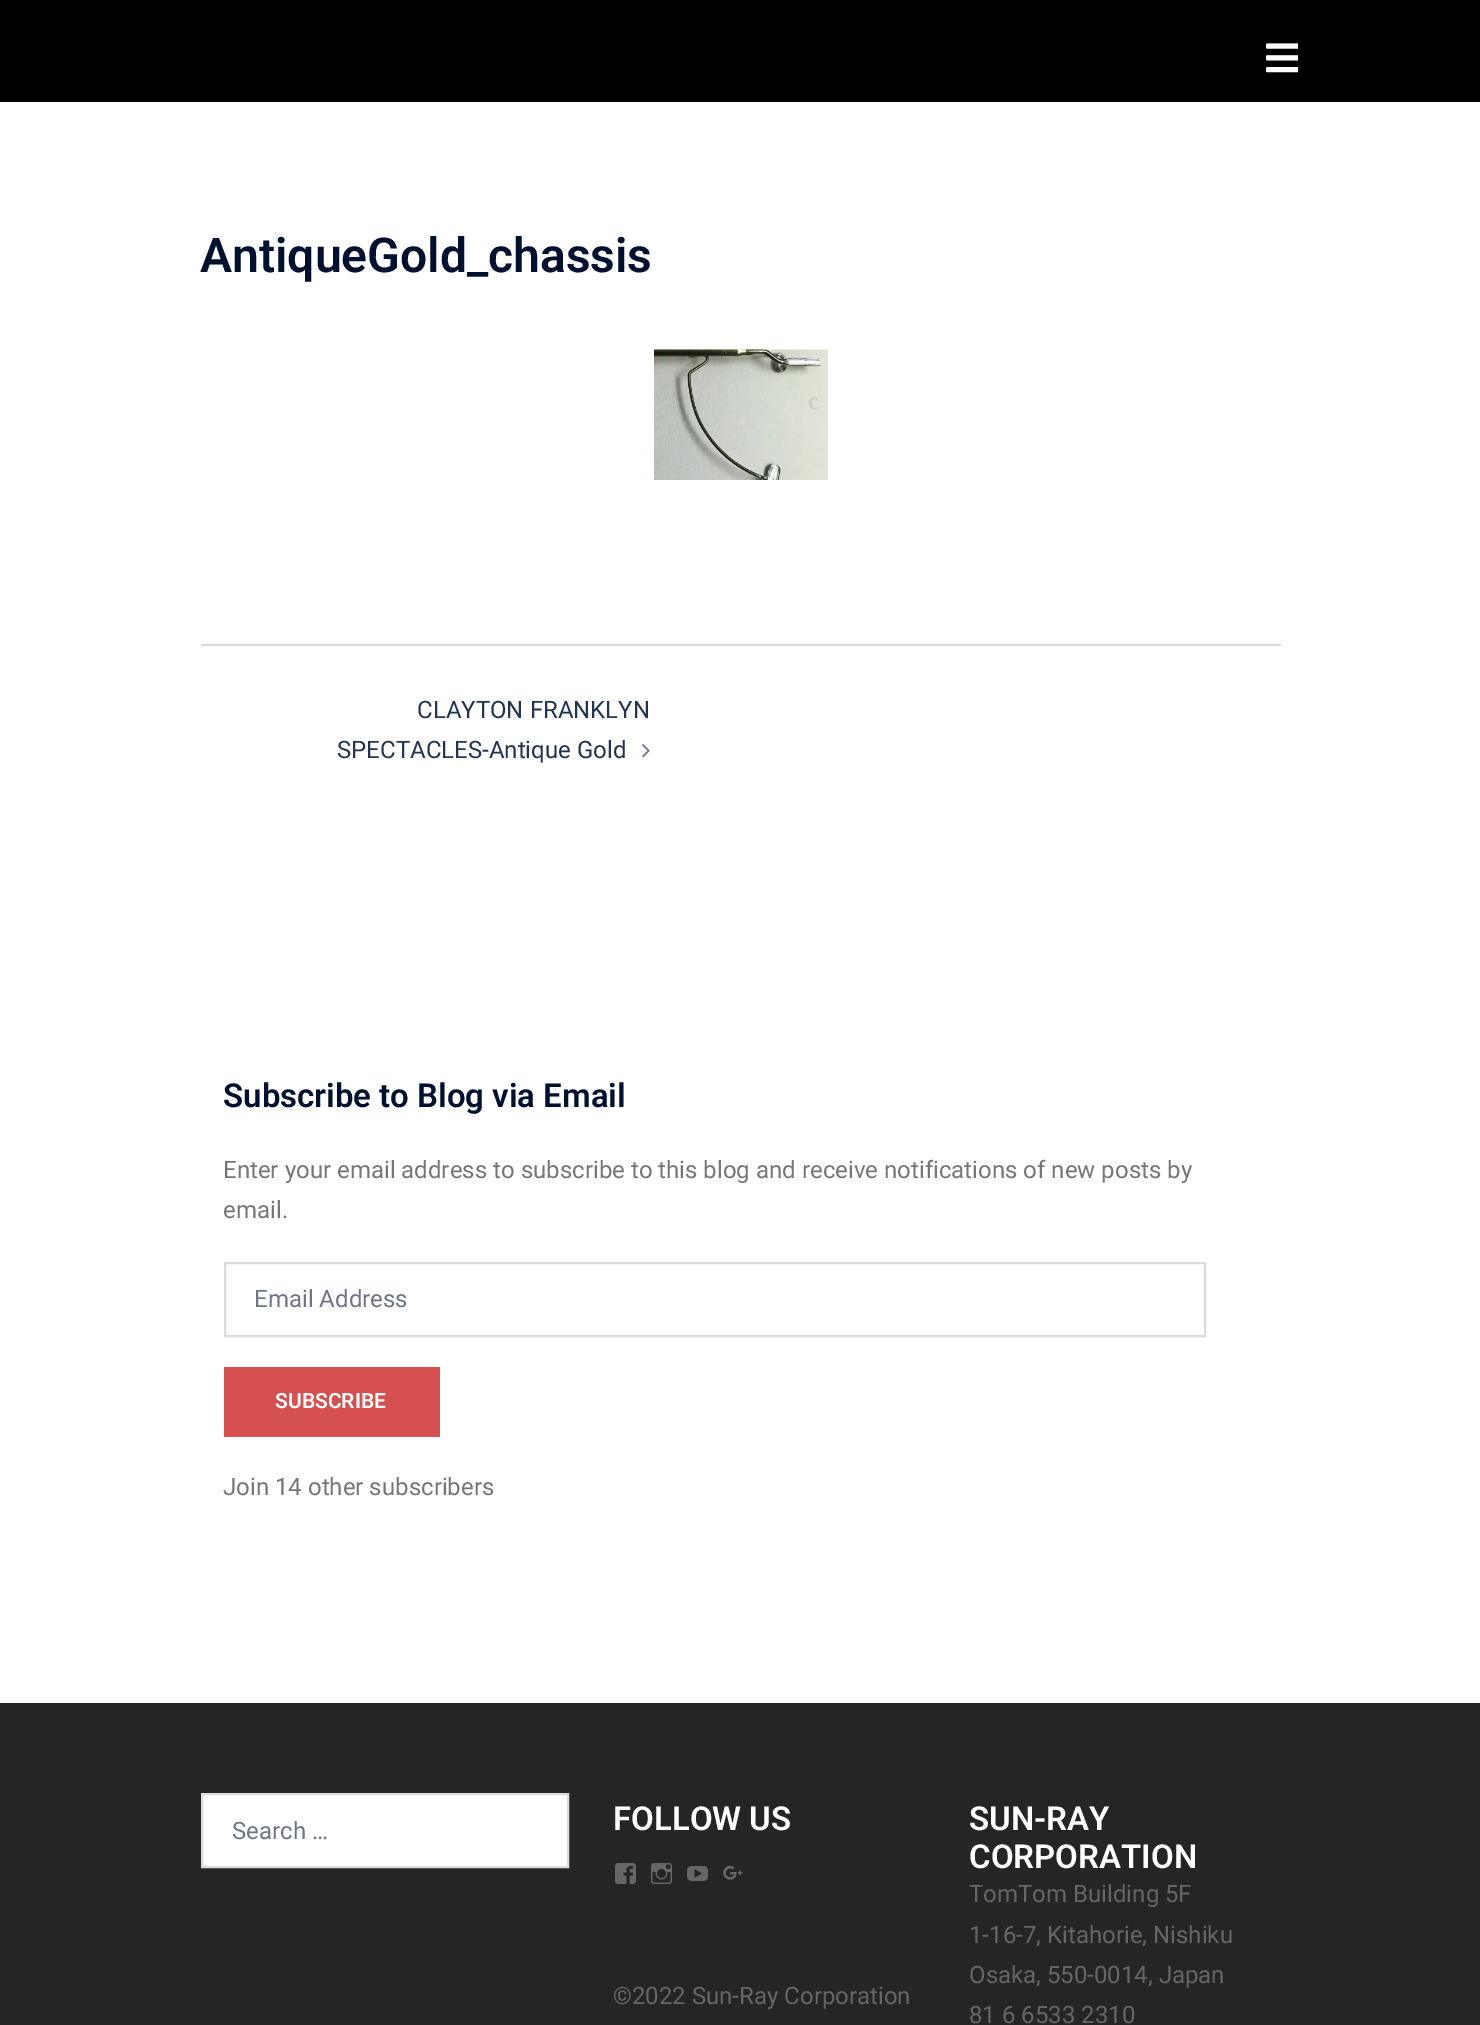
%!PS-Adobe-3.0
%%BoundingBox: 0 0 1480 2025
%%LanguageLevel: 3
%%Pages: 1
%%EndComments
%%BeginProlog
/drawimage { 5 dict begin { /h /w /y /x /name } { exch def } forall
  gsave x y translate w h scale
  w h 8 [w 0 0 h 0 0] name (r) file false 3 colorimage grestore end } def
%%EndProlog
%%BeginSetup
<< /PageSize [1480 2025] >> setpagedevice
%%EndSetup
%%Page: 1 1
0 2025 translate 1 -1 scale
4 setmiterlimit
1 setgray
0 0 1480 2025 rectfill
0 setgray
0 0 1480 102 rectfill
(images/1.raw) 1266 43 32 30 drawimage
(images/2.raw) 654 349 174 131 drawimage
0.859 setgray
201 644 1080 2 rectfill
(images/3.raw) 642 744 8 14 drawimage
2 setlinewidth
225 1263 980 73 rectstroke
0.839 0.314 0.314 setrgbcolor
224 1367 216 70 rectfill
0.145 setgray
0 1703 1480 322 rectfill
1 setgray
newpath 202 1794 moveto 568 1794 lineto 568 1867 lineto 202 1867 lineto closepath gsave fill grestore
0.859 setgray
stroke
(images/4.raw) 615 1863 21 21 drawimage
(images/5.raw) 651 1863 21 21 drawimage
(images/6.raw) 687 1866 21 15 drawimage
(images/7.raw) 723 1865 20 15 drawimage
/Roboto-SemiBold [48 0 0 -48 0 0] selectfont
0 0.063 0.18 setrgbcolor
200 272 moveto (AntiqueGold_chassis) show
/LiberationSerif-Bold [24 0 0 -24 0 0] selectfont
0.792 0.812 0.776 setrgbcolor
808 409 moveto (c) show
/Roboto-Regular [24 0 0 -24 0 0] selectfont
0.137 0.204 0.322 setrgbcolor
417 718 moveto (CLAYTON FRANKLYN) show
337 758 moveto (SPECTACLES-Antique Gold) show
/Roboto-SemiBold [33 0 0 -33 0 0] selectfont
0 0.063 0.18 setrgbcolor
223 1107 moveto (Subscribe to Blog via Email) show
/Roboto-Regular [24 0 0 -24 0 0] selectfont
0.463 setgray
223 1178 moveto (Enter your email address to subscribe to this blog and receive notifications of new posts by) show
223 1218 moveto (email.) show
0.427 0.463 0.522 setrgbcolor
254 1307 moveto (Email Address) show
/Roboto-SemiBold [21 0 0 -21 0 0] selectfont
1 setgray
275 1408 moveto (SUBSCRIBE) show
/Roboto-Regular [24 0 0 -24 0 0] selectfont
0.463 setgray
223 1495 moveto (Join 14 other subscribers) show
0.427 0.463 0.522 setrgbcolor
232 1839 moveto (Search …) show
/Roboto-SemiBold [33 0 0 -33 0 0] selectfont
1 setgray
613 1830 moveto (FOLLOW US) show
/Roboto-Regular [24 0 0 -24 0 0] selectfont
0.4 setgray
613 2004 moveto (©2022 Sun-Ray Corporation) show
/Roboto-SemiBold [33 0 0 -33 0 0] selectfont
1 setgray
969 1830 moveto (SUN-RAY) show
969 1868 moveto (CORPORATION) show
/Roboto-Regular [24 0 0 -24 0 0] selectfont
0.4 setgray
969 1902 moveto (TomTom Building 5F) show
969 1943 moveto (1-16-7, Kitahorie, Nishiku) show
969 1983 moveto (Osaka, 550-0014, Japan) show
969 2023 moveto (81 6 6533 2310) show
showpage
%%EOF
